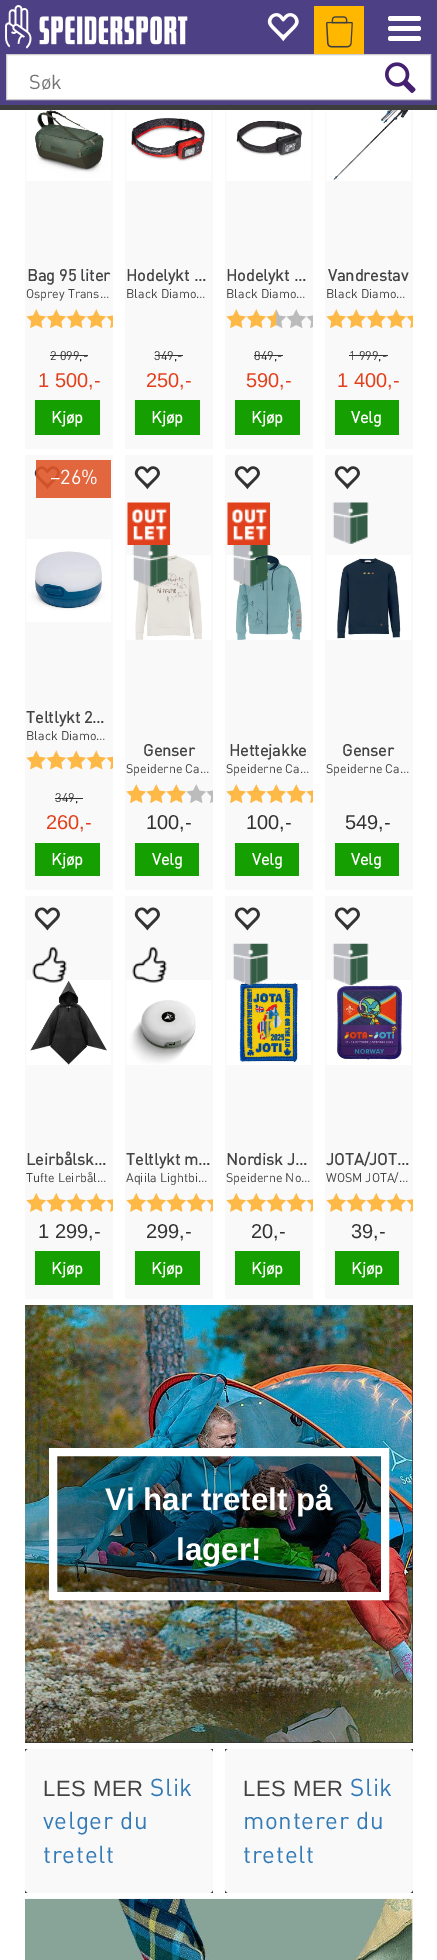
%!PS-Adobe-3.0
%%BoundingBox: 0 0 437 1960
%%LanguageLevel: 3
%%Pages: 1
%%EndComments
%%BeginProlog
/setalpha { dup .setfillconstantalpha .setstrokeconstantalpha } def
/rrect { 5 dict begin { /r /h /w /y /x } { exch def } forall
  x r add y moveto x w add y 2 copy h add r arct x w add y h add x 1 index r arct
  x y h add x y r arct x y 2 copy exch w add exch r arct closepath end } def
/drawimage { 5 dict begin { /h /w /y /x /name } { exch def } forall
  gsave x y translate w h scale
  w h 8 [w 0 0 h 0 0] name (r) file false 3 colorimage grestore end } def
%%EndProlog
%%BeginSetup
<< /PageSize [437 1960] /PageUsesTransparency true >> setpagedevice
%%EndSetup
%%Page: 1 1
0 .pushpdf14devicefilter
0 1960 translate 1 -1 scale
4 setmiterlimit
1 setgray
0 0 437 1960 rectfill
0.302 0.251 0.518 setrgbcolor
0 0 437 105 rectfill
0.239 setgray
0 105 437 5 rectfill
(images/1.raw) 5 5 183 44 drawimage
(images/2.raw) 267 13 32 29 drawimage
1 0.718 0 setrgbcolor
314 6 50 48 rectfill
(images/3.raw) 326 16 27 32 drawimage
1 setgray
388 16 33 5 2.5 rrect fill
388 26 33 5 2.5 rrect fill
388 36 33 5 2.5 rrect fill
newpath 6.5 54.5 moveto 430.5 54.5 lineto 430.5 99.5 lineto 6.5 99.5 lineto closepath gsave fill grestore
0.8 setgray
stroke
(images/4.raw) 385 62 31 31 drawimage
0.976 setgray
25 110 88 339 rectfill
(images/5.raw) 26 110 85 71 drawimage
(images/6.raw) 26 309 20 20 drawimage
(images/6.raw) 46 309 20 20 drawimage
(images/6.raw) 66 309 20 20 drawimage
(images/6.raw) 86 309 20 20 drawimage
(images/7.raw) 106 315 7 14 drawimage
0.2 setgray
50 355 38 1 rectfill
0.082 0.624 0 setrgbcolor
35 400 65 35 rectfill
0.976 setgray
125 110 88 339 rectfill
(images/8.raw) 126 110 85 71 drawimage
0.2 setgray
155 355 28 1 rectfill
0.082 0.624 0 setrgbcolor
135 400 65 35 rectfill
0.976 setgray
225 110 88 339 rectfill
(images/9.raw) 226 110 85 71 drawimage
(images/6.raw) 226 309 20 20 drawimage
(images/6.raw) 246 309 20 20 drawimage
(images/10.raw) 266 309 20 20 drawimage
(images/11.raw) 286 309 20 19 drawimage
(images/12.raw) 306 315 7 13 drawimage
0.2 setgray
254 355 29 1 rectfill
0.082 0.624 0 setrgbcolor
235 400 65 35 rectfill
0.976 setgray
325 110 88 339 rectfill
(images/13.raw) 326 110 85 71 drawimage
(images/6.raw) 326 309 20 20 drawimage
(images/6.raw) 346 309 20 20 drawimage
(images/6.raw) 366 309 20 20 drawimage
(images/6.raw) 386 309 20 20 drawimage
(images/7.raw) 406 315 7 14 drawimage
0.2 setgray
349 355 39 1 rectfill
0.082 0.624 0 setrgbcolor
335 400 64 35 rectfill
0.976 setgray
25 455 88 435 rectfill
0.89 0.404 0.243 setrgbcolor
36 460 75 38 rectfill
(images/14.raw) 34 466 26 24 drawimage
(images/15.raw) 26 539 85 83 drawimage
(images/16.raw) 26 750 20 20 drawimage
(images/16.raw) 46 750 20 20 drawimage
(images/16.raw) 66 750 20 20 drawimage
(images/16.raw) 86 750 20 20 drawimage
(images/17.raw) 106 756 7 14 drawimage
0.2 setgray
55 798 28 1 rectfill
0.082 0.624 0 setrgbcolor
35 843 65 33 rectfill
0.976 setgray
125 455 88 435 rectfill
(images/18.raw) 134 466 26 24 drawimage
(images/19.raw) 127 502 43 43 drawimage
(images/21.raw) 126 555 85 85 drawimage
(images/20.raw) 132 545 37 42 drawimage
(images/6.raw) 126 784 20 20 drawimage
(images/6.raw) 146 784 20 20 drawimage
(images/6.raw) 166 784 20 20 drawimage
(images/11.raw) 186 784 20 19 drawimage
(images/12.raw) 206 790 7 13 drawimage
0.082 0.624 0 setrgbcolor
135 843 64 33 rectfill
0.976 setgray
225 455 88 435 rectfill
(images/18.raw) 234 466 26 24 drawimage
(images/19.raw) 227 502 43 43 drawimage
(images/23.raw) 226 555 85 85 drawimage
(images/22.raw) 232 545 37 42 drawimage
(images/6.raw) 226 784 20 20 drawimage
(images/6.raw) 246 784 20 20 drawimage
(images/6.raw) 266 784 20 20 drawimage
(images/6.raw) 286 784 20 20 drawimage
(images/7.raw) 306 790 7 14 drawimage
0.082 0.624 0 setrgbcolor
235 843 64 33 rectfill
0.976 setgray
325 455 88 435 rectfill
(images/18.raw) 334 466 26 24 drawimage
(images/24.raw) 332 502 37 42 drawimage
(images/25.raw) 326 555 85 85 drawimage
0.082 0.624 0 setrgbcolor
335 843 64 33 rectfill
0.976 setgray
25 896 88 403 rectfill
(images/26.raw) 34 907 26 24 drawimage
(images/28.raw) 26 980 85 85 drawimage
(images/27.raw) 32 946 35 37 drawimage
(images/29.raw) 26 1193 20 19 drawimage
(images/29.raw) 46 1193 20 19 drawimage
(images/29.raw) 66 1193 20 19 drawimage
(images/29.raw) 86 1193 20 19 drawimage
(images/30.raw) 106 1199 7 13 drawimage
0.082 0.624 0 setrgbcolor
35 1251 65 34 rectfill
0.976 setgray
125 896 88 403 rectfill
(images/26.raw) 134 907 26 24 drawimage
(images/32.raw) 126 980 85 85 drawimage
(images/31.raw) 132 946 35 37 drawimage
(images/29.raw) 126 1193 20 19 drawimage
(images/29.raw) 146 1193 20 19 drawimage
(images/29.raw) 166 1193 20 19 drawimage
(images/29.raw) 186 1193 20 19 drawimage
(images/30.raw) 206 1199 7 13 drawimage
0.082 0.624 0 setrgbcolor
135 1251 65 34 rectfill
0.976 setgray
225 896 88 403 rectfill
(images/26.raw) 234 907 26 24 drawimage
(images/34.raw) 226 980 85 85 drawimage
(images/33.raw) 232 943 37 43 drawimage
(images/29.raw) 226 1193 20 19 drawimage
(images/29.raw) 246 1193 20 19 drawimage
(images/29.raw) 266 1193 20 19 drawimage
(images/29.raw) 286 1193 20 19 drawimage
(images/30.raw) 306 1199 7 13 drawimage
0.082 0.624 0 setrgbcolor
235 1251 65 34 rectfill
0.976 setgray
325 896 88 403 rectfill
(images/26.raw) 334 907 26 24 drawimage
(images/36.raw) 326 980 85 85 drawimage
(images/35.raw) 332 943 37 43 drawimage
(images/29.raw) 326 1193 20 19 drawimage
(images/29.raw) 346 1193 20 19 drawimage
(images/29.raw) 366 1193 20 19 drawimage
(images/29.raw) 386 1193 20 19 drawimage
(images/30.raw) 406 1199 7 13 drawimage
0.082 0.624 0 setrgbcolor
335 1251 64 34 rectfill
0.2 setgray
25 1305 388 438 rectfill
(images/37.raw) 25 1305 388 438 drawimage
0.3 setalpha
0 setgray
newpath 53 1452 moveto 385 1452 lineto 385 1596 lineto 53 1596 lineto closepath fill
1 setalpha
1 setgray
8 setlinewidth
newpath 53 1452 moveto 385 1452 lineto 385 1596 lineto 53 1596 lineto closepath stroke
0.2 setgray
25 1749 188 144 rectfill
0.976 setgray
25 1749 188 144 4 rrect fill
0.2 setgray
225 1749 188 144 rectfill
0.976 setgray
225 1749 188 144 4 rrect fill
0.98 0.969 0.941 setrgbcolor
412 1899 1 61 rectfill
(images/38.raw) 25 1898 388 62 drawimage
/DIN-Regular [20 0 0 -20 0 0] selectfont
0.459 setgray
29 89 moveto (Søk) show
/DIN-Bold [16.25 0 0 -16.25 0 0] selectfont
0.263 0.259 0.267 setrgbcolor
27 281 moveto (Bag 95 liter) show
/DIN-Regular [12.5 0 0 -12.5 0 0] selectfont
26 298 moveto (Osprey Trans…) show
0.2 setgray
50 360 moveto (2 099,-) show
/LiberationSans-Regular [20 0 0 -20 0 0] selectfont
0.886 0.251 0.11 setrgbcolor
38 387 moveto (1 500,-) show
/DIN-Bold [16.25 0 0 -16.25 0 0] selectfont
1 setgray
51 423 moveto (Kjøp) show
0.263 0.259 0.267 setrgbcolor
126 281 moveto (Hodelykt …) show
/DIN-Regular [12.5 0 0 -12.5 0 0] selectfont
126 298 moveto (Black Diamo…) show
0.2 setgray
154 360 moveto (349,-) show
/LiberationSans-Regular [20 0 0 -20 0 0] selectfont
0.886 0.251 0.11 setrgbcolor
146 387 moveto (250,-) show
/DIN-Bold [16.25 0 0 -16.25 0 0] selectfont
1 setgray
151 423 moveto (Kjøp) show
0.263 0.259 0.267 setrgbcolor
226 281 moveto (Hodelykt …) show
/DIN-Regular [12.5 0 0 -12.5 0 0] selectfont
226 298 moveto (Black Diamo…) show
0.2 setgray
254 360 moveto (849,-) show
/LiberationSans-Regular [20 0 0 -20 0 0] selectfont
0.886 0.251 0.11 setrgbcolor
246 387 moveto (590,-) show
/DIN-Bold [16.25 0 0 -16.25 0 0] selectfont
1 setgray
251 423 moveto (Kjøp) show
0.263 0.259 0.267 setrgbcolor
328 281 moveto (Vandrestav) show
/DIN-Regular [12.5 0 0 -12.5 0 0] selectfont
326 298 moveto (Black Diamo…) show
0.2 setgray
349 360 moveto (1 999,-) show
/LiberationSans-Regular [20 0 0 -20 0 0] selectfont
0.886 0.251 0.11 setrgbcolor
337 387 moveto (1 400,-) show
/DIN-Bold [16.25 0 0 -16.25 0 0] selectfont
1 setgray
351 423 moveto (Velg) show
/DIN-Regular [20 0 0 -20 0 0] selectfont
50 484 moveto (–26%) show
/DIN-Bold [16.25 0 0 -16.25 0 0] selectfont
0.263 0.259 0.267 setrgbcolor
26 723 moveto (Teltlykt 2…) show
/DIN-Regular [12.5 0 0 -12.5 0 0] selectfont
26 740 moveto (Black Diamo…) show
0.2 setgray
55 802 moveto (349,-) show
/LiberationSans-Regular [20 0 0 -20 0 0] selectfont
0.886 0.251 0.11 setrgbcolor
46 829 moveto (260,-) show
/DIN-Bold [16.25 0 0 -16.25 0 0] selectfont
1 setgray
51 865 moveto (Kjøp) show
0.263 0.259 0.267 setrgbcolor
143 756 moveto (Genser) show
/DIN-Regular [12.5 0 0 -12.5 0 0] selectfont
126 773 moveto (Speiderne Ca…) show
/LiberationSans-Regular [20 0 0 -20 0 0] selectfont
0.2 setgray
146 829 moveto (100,-) show
/DIN-Bold [16.25 0 0 -16.25 0 0] selectfont
1 setgray
152 865 moveto (Velg) show
0.263 0.259 0.267 setrgbcolor
229 756 moveto (Hettejakke) show
/DIN-Regular [12.5 0 0 -12.5 0 0] selectfont
226 773 moveto (Speiderne Ca…) show
/LiberationSans-Regular [20 0 0 -20 0 0] selectfont
0.2 setgray
246 829 moveto (100,-) show
/DIN-Bold [16.25 0 0 -16.25 0 0] selectfont
1 setgray
252 865 moveto (Velg) show
0.263 0.259 0.267 setrgbcolor
342 756 moveto (Genser) show
/DIN-Regular [12.5 0 0 -12.5 0 0] selectfont
326 773 moveto (Speiderne Ca…) show
/LiberationSans-Regular [20 0 0 -20 0 0] selectfont
0.2 setgray
345 829 moveto (549,-) show
/DIN-Bold [16.25 0 0 -16.25 0 0] selectfont
1 setgray
351 865 moveto (Velg) show
0.263 0.259 0.267 setrgbcolor
26 1165 moveto (Leirbålsk…) show
/DIN-Regular [12.5 0 0 -12.5 0 0] selectfont
26 1182 moveto (Tufte Leirbål…) show
/LiberationSans-Regular [20 0 0 -20 0 0] selectfont
0.2 setgray
38 1238 moveto (1 299,-) show
/DIN-Bold [16.25 0 0 -16.25 0 0] selectfont
1 setgray
51 1274 moveto (Kjøp) show
0.263 0.259 0.267 setrgbcolor
126 1165 moveto (Teltlykt m…) show
/DIN-Regular [12.5 0 0 -12.5 0 0] selectfont
126 1182 moveto (Aqiila Lightbi…) show
/LiberationSans-Regular [20 0 0 -20 0 0] selectfont
0.2 setgray
146 1238 moveto (299,-) show
/DIN-Bold [16.25 0 0 -16.25 0 0] selectfont
1 setgray
151 1274 moveto (Kjøp) show
0.263 0.259 0.267 setrgbcolor
226 1165 moveto (Nordisk J…) show
/DIN-Regular [12.5 0 0 -12.5 0 0] selectfont
226 1182 moveto (Speiderne No…) show
/LiberationSans-Regular [20 0 0 -20 0 0] selectfont
0.2 setgray
251 1238 moveto (20,-) show
/DIN-Bold [16.25 0 0 -16.25 0 0] selectfont
1 setgray
251 1274 moveto (Kjøp) show
0.263 0.259 0.267 setrgbcolor
326 1165 moveto (JOTA/JOT…) show
/DIN-Regular [12.5 0 0 -12.5 0 0] selectfont
326 1182 moveto (WOSM JOTA/…) show
/LiberationSans-Regular [20 0 0 -20 0 0] selectfont
0.2 setgray
351 1238 moveto (39,-) show
/DIN-Bold [16.25 0 0 -16.25 0 0] selectfont
1 setgray
351 1274 moveto (Kjøp) show
/LiberationSans-Bold [31.25 0 0 -31.25 0 0] selectfont
105 1510 moveto (Vi har tretelt på) show
176 1560 moveto (lager!) show
/LiberationSans-Regular [22 0 0 -22 0 0] selectfont
0.263 0.259 0.267 setrgbcolor
43 1796 moveto 0.6 0 (LES MER) ashow
/DIN-Regular [24.25 0 0 -24.25 0 0] selectfont
0.2 0.478 0.718 setrgbcolor
150 1796 moveto 0.6 0 (Slik) ashow
43 1829 moveto 0.6 0 (velger du) ashow
43 1863 moveto 0.6 0 (tretelt) ashow
/LiberationSans-Regular [22 0 0 -22 0 0] selectfont
0.263 0.259 0.267 setrgbcolor
243 1796 moveto 0.6 0 (LES MER) ashow
/DIN-Regular [24.25 0 0 -24.25 0 0] selectfont
0.2 0.478 0.718 setrgbcolor
350 1796 moveto 0.6 0 (Slik) ashow
243 1829 moveto 0.6 0 (monterer du) ashow
243 1863 moveto 0.6 0 (tretelt) ashow
.poppdf14devicefilter showpage
%%EOF
